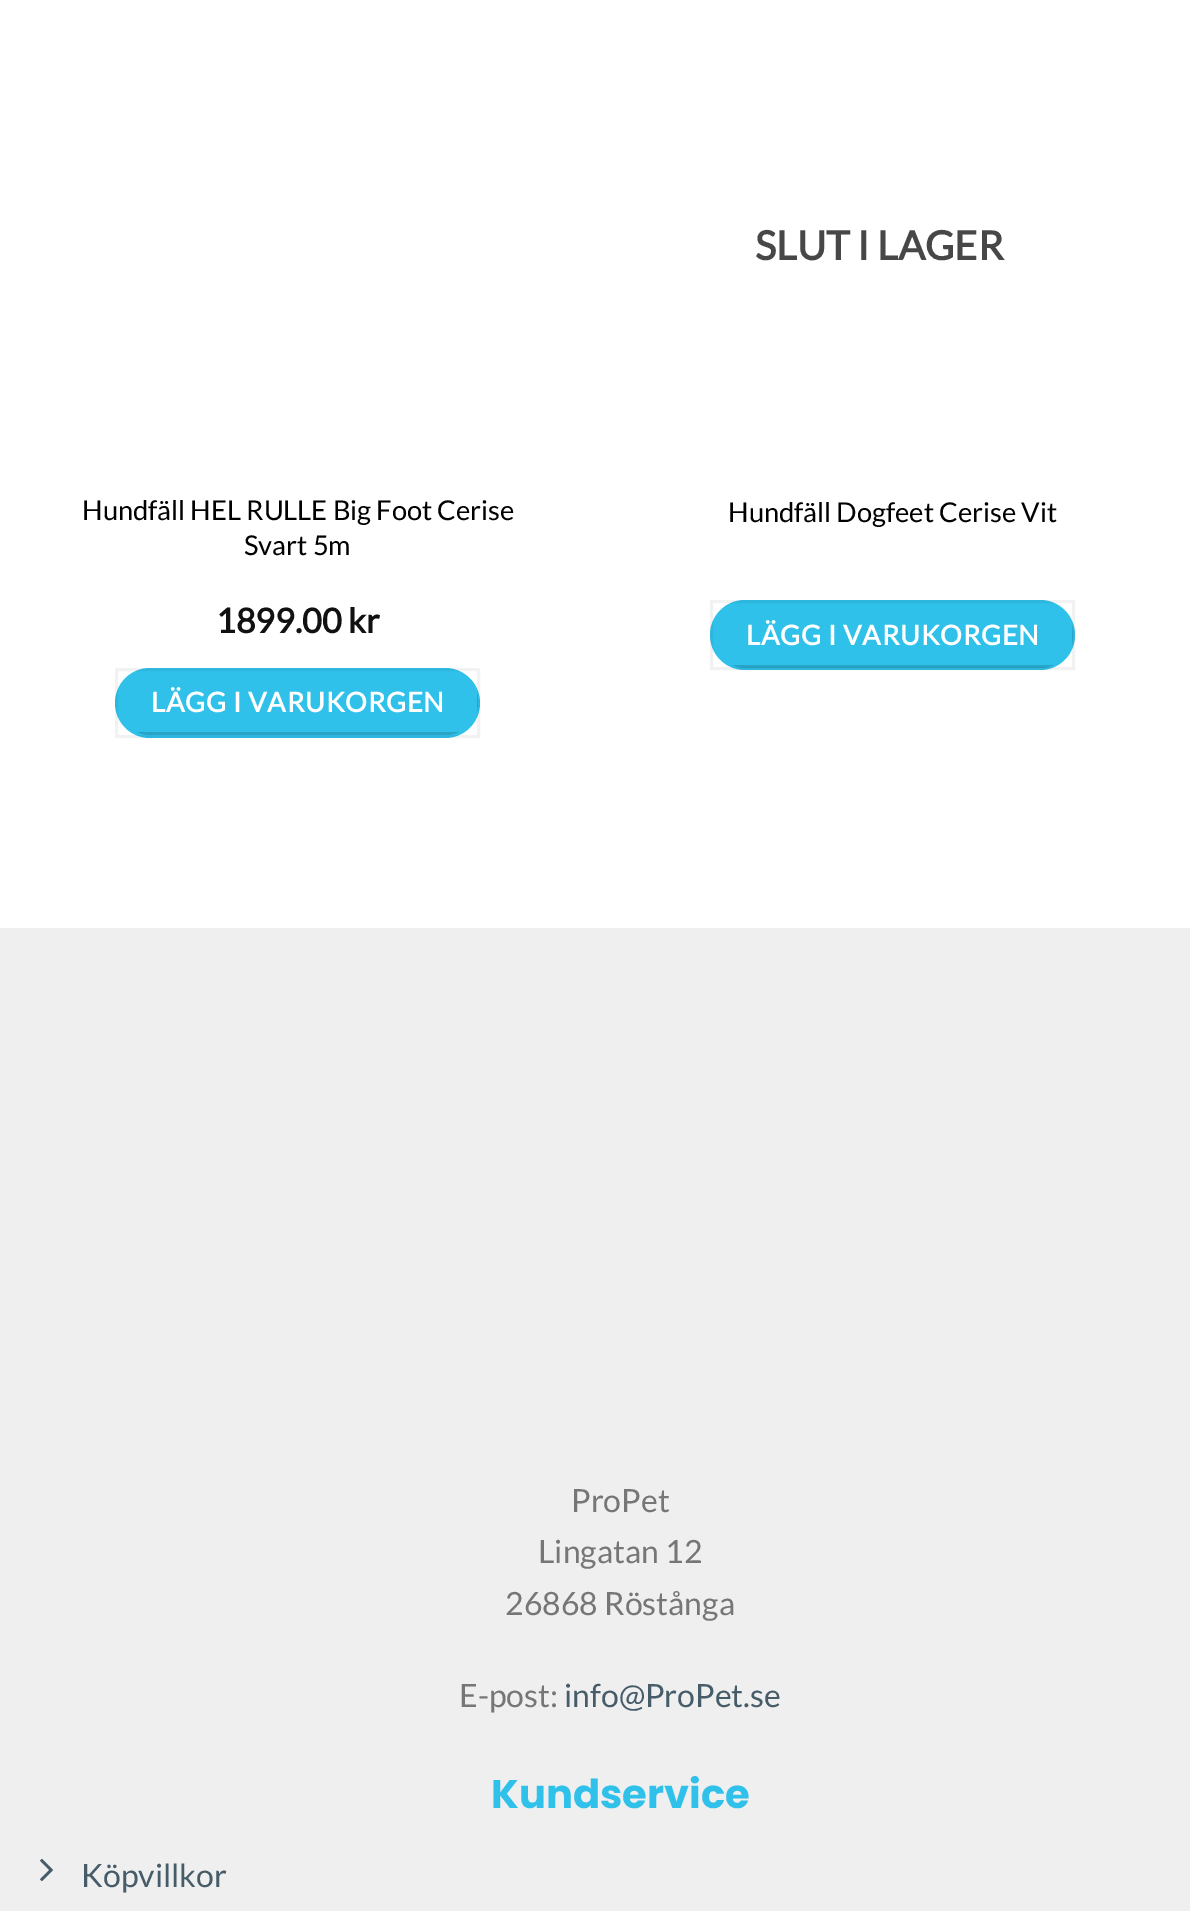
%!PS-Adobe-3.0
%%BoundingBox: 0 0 1190 1911
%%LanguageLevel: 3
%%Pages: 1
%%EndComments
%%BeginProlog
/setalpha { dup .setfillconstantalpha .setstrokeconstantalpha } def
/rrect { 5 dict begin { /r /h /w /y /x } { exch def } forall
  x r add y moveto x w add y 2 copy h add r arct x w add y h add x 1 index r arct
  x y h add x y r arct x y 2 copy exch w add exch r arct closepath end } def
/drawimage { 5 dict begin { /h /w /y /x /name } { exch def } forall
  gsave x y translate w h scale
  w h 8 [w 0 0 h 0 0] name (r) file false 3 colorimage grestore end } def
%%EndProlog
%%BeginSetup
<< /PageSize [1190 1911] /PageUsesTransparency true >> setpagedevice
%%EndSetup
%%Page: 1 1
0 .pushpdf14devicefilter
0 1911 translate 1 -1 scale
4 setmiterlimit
1 setgray
0 0 1190 1911 rectfill
0.184 0.757 0.918 setrgbcolor
115 668 365 70 35 rrect fill
0.05 setalpha
0 setgray
3 setlinewidth
116.5 669.5 362 67 rectstroke
1 setalpha
0.184 0.757 0.918 setrgbcolor
710 600 365 70 35 rrect fill
0.05 setalpha
0 setgray
711.5 601.5 362 67 rectstroke
1 setalpha
0.937 setgray
0 928 1190 983 rectfill
(images/1.raw) 40 1858 13 24 drawimage
/Lato-Regular [27.25 0 0 -27.25 0 0] selectfont
0 setgray
82 520 moveto (Hundfäll HEL RULLE Big Foot Cerise) show
244 555 moveto (Svart 5m) show
/Lato-Bold [34 0 0 -34 0 0] selectfont
0.067 setgray
216 633 moveto (1899.00 kr) show
/Lato-Bold [27.25 0 0 -27.25 0 0] selectfont
1 setgray
151 712 moveto 0.8 0 (LÄGG I VARUKORGEN) ashow
0.15 setalpha
0 setgray
newpath 137 732 moveto 141 734 146 735 150 735 curveto 446 735 lineto 450 735 455 734 459 732 curveto closepath 477 711 moveto 478 705 478 700 477 694 curveto closepath eofill
/Lato-Bold [40 0 0 -40 0 0] selectfont
1 setalpha
0.278 setgray
755 260 moveto (SLUT I LAGER) show
/Lato-Regular [27.25 0 0 -27.25 0 0] selectfont
0 setgray
728 522 moveto (Hundfäll Dogfeet Cerise Vit) show
/Lato-Bold [27.25 0 0 -27.25 0 0] selectfont
1 setgray
746 645 moveto 0.8 0 (LÄGG I VARUKORGEN) ashow
0.15 setalpha
0 setgray
newpath 732 665 moveto 736 667 741 668 746 668 curveto 1040 668 lineto 1045 668 1050 667 1054 665 curveto closepath 1072 644 moveto 1073 638 1073 633 1072 627 curveto closepath eofill
/Lato-Regular [32 0 0 -32 0 0] selectfont
1 setalpha
0.463 setgray
571 1512 moveto (ProPet) show
538 1563 moveto (Lingatan 12) show
505 1615 moveto (26868 Röstånga) show
459 1707 moveto (E-post:) show
0.275 0.361 0.412 setrgbcolor
564 1707 moveto (info@ProPet.se) show
/Poppins-Bold [40 0 0 -40 0 0] selectfont
0.184 0.757 0.918 setrgbcolor
491 1808 moveto (Kundservice) show
/Lato-Regular [32 0 0 -32 0 0] selectfont
0.275 0.361 0.412 setrgbcolor
81 1887 moveto (Köpvillkor) show
.poppdf14devicefilter showpage
%%EOF
